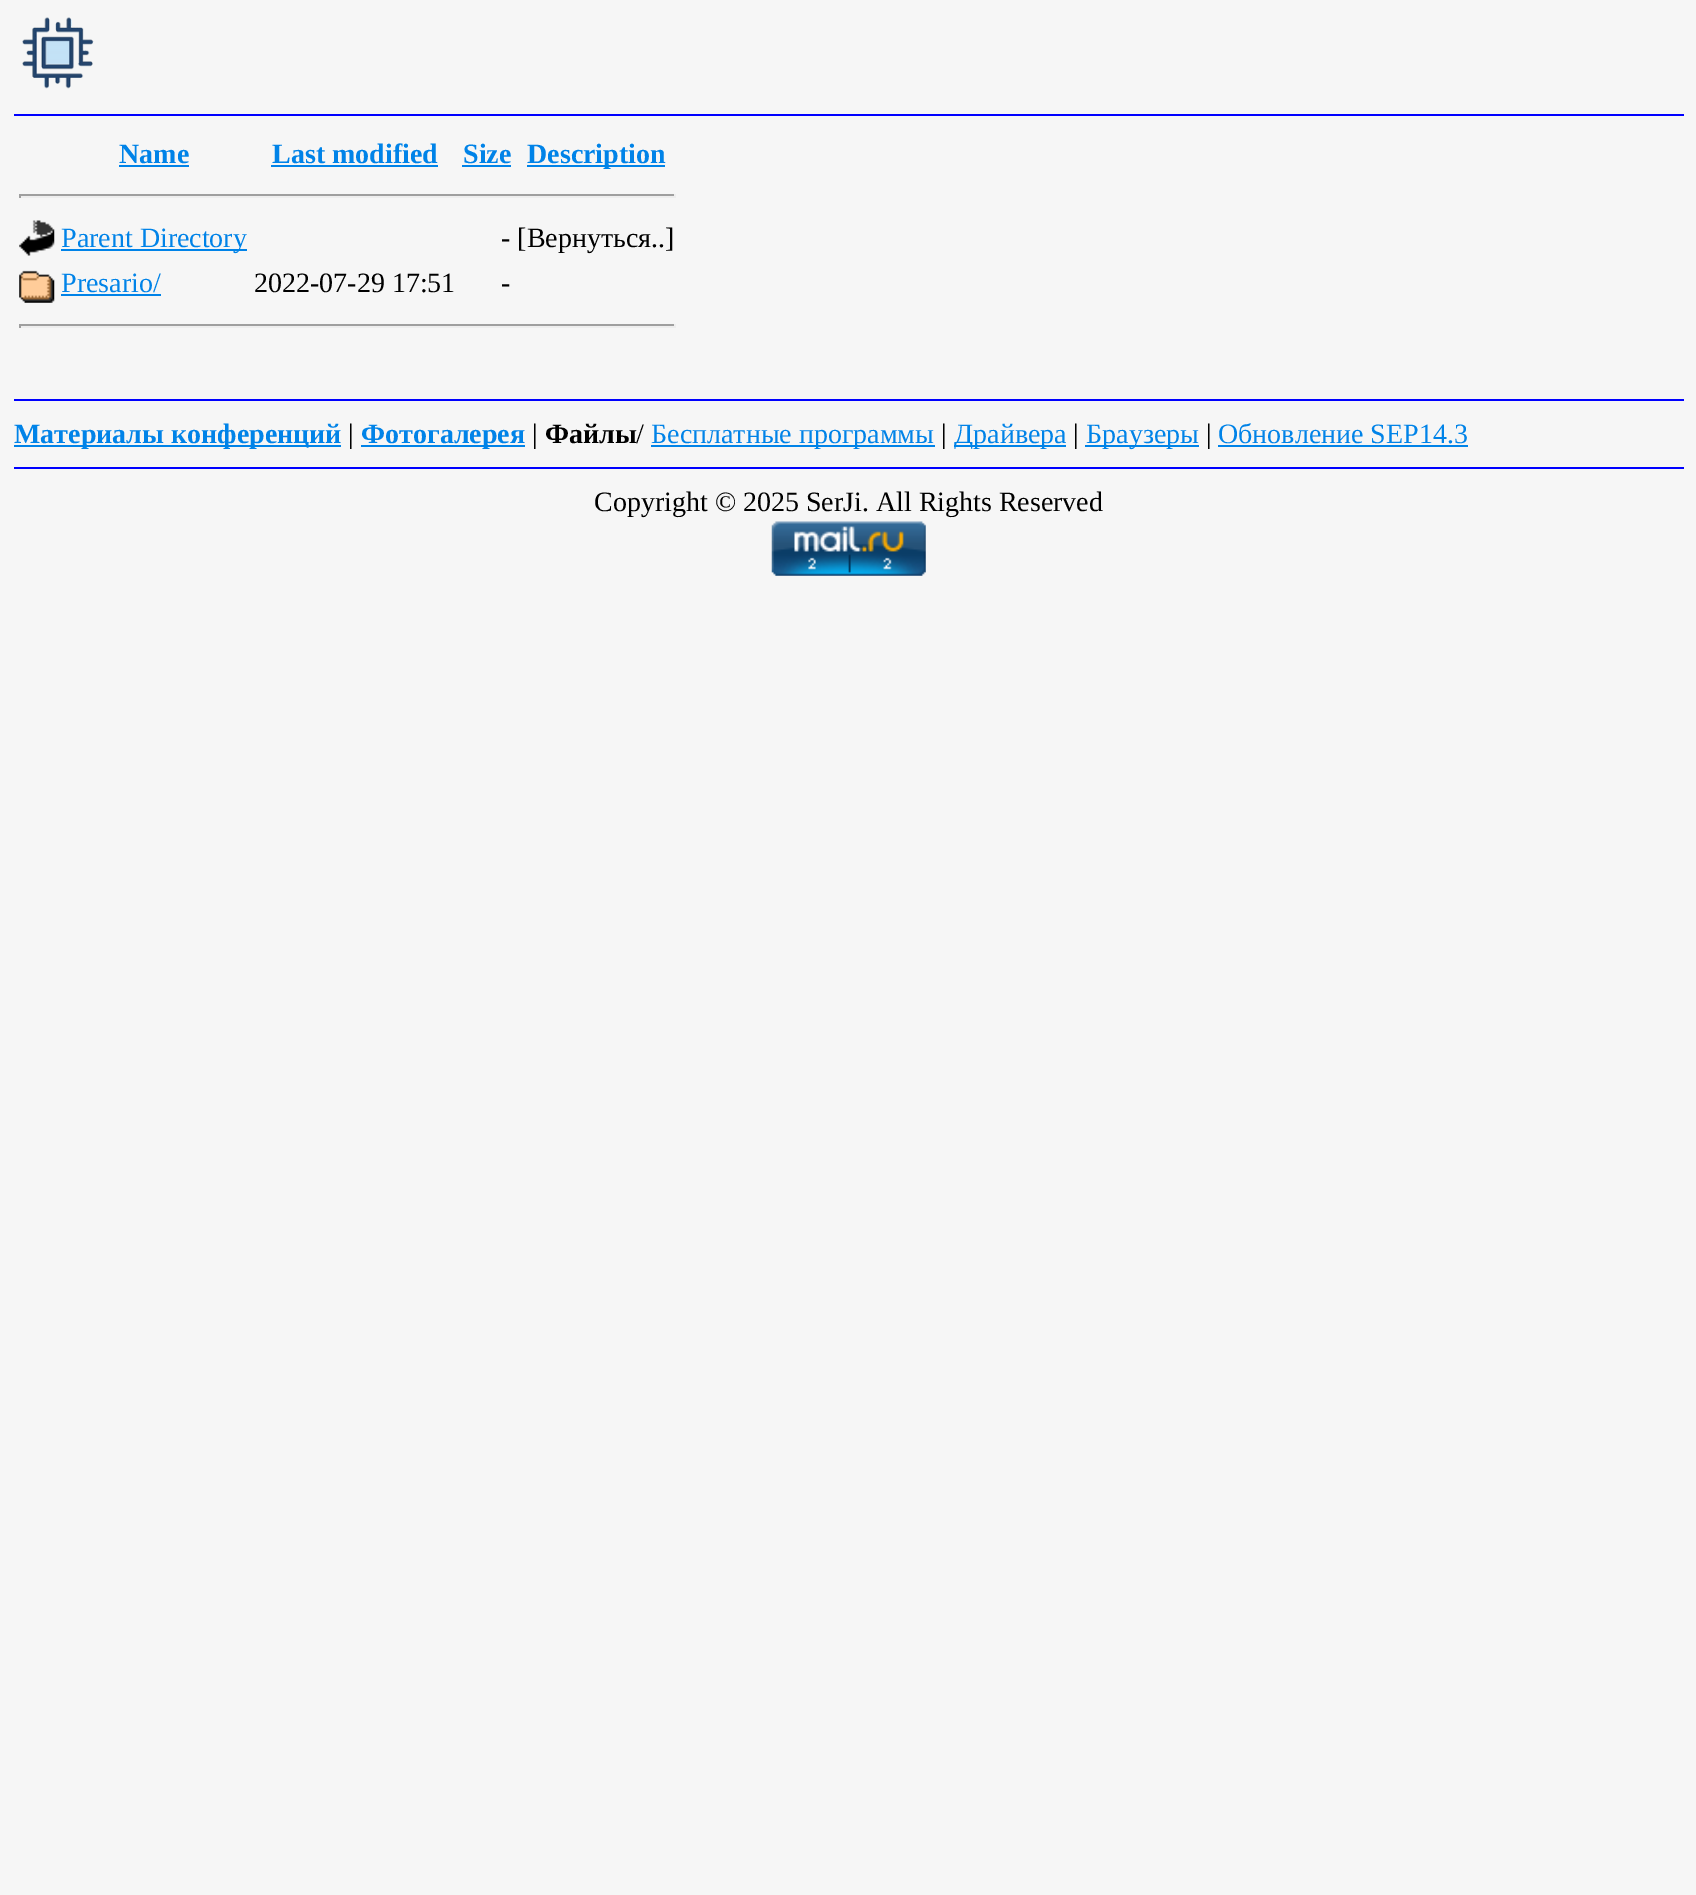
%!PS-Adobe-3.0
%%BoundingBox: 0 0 1696 1895
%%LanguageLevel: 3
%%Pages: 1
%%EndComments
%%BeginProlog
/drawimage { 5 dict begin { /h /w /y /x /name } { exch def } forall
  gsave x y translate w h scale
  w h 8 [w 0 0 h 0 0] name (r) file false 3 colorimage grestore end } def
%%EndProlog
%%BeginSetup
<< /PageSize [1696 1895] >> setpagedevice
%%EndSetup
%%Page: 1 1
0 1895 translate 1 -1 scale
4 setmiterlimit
0.965 setgray
0 0 1696 1895 rectfill
(images/1.raw) 22 17 72 72 drawimage
0 0 1 setrgbcolor
14 114 1670 2 rectfill
0 0.514 0.91 setrgbcolor
119 165 70 2 rectfill
271 165 167 2 rectfill
462 165 49 2 rectfill
527 165 138 2 rectfill
0.624 setgray
19 194 657 2 rectfill
0.933 setgray
674 194 2 4 rectfill
19 196 657 2 rectfill
0.624 setgray
19 194 2 4 rectfill
(images/2.raw) 19 220 36 36 drawimage
0 0.514 0.91 setrgbcolor
61 249 186 2 rectfill
(images/3.raw) 19 270 36 33 drawimage
61 294 100 2 rectfill
0.624 setgray
19 324 657 2 rectfill
0.933 setgray
674 324 2 4 rectfill
19 326 657 2 rectfill
0.624 setgray
19 324 2 4 rectfill
0 0 1 setrgbcolor
14 399 1670 2 rectfill
0 0.514 0.91 setrgbcolor
14 445 327 2 rectfill
361 445 164 2 rectfill
651 445 284 2 rectfill
954 445 112 2 rectfill
1085 445 114 2 rectfill
1218 445 250 2 rectfill
0 0 1 setrgbcolor
14 467 1670 2 rectfill
(images/4.raw) 771 521 155 55 drawimage
/LiberationSerif-Bold [28 0 0 -28 0 0] selectfont
0 0.514 0.91 setrgbcolor
119 163 moveto (Name) show
272 163 moveto (Last modified) show
463 163 moveto (Size) show
527 163 moveto (Description) show
/LiberationSerif-Regular [28 0 0 -28 0 0] selectfont
61 247 moveto (Parent Directory) show
0 setgray
501 247 moveto (- [Вернуться..]) show
0 0.514 0.91 setrgbcolor
61 292 moveto (Presario/) show
0 setgray
254 292 moveto (2022-07-29 17:51) show
501 292 moveto (-) show
/LiberationSerif-Bold [28 0 0 -28 0 0] selectfont
0 0.514 0.91 setrgbcolor
14 443 moveto (Материалы конференций) show
/LiberationSerif-Regular [28 0 0 -28 0 0] selectfont
0 setgray
348 443 moveto (|) show
/LiberationSerif-Bold [28 0 0 -28 0 0] selectfont
0 0.514 0.91 setrgbcolor
361 443 moveto (Фотогалерея) show
/LiberationSerif-Regular [28 0 0 -28 0 0] selectfont
0 setgray
532 443 moveto (|) show
/LiberationSerif-Bold [28 0 0 -28 0 0] selectfont
545 443 moveto (Файлы) show
/LiberationSerif-Regular [28 0 0 -28 0 0] selectfont
636 443 moveto (/) show
0 0.514 0.91 setrgbcolor
651 443 moveto (Бесплатные программы) show
0 setgray
941 443 moveto (|) show
0 0.514 0.91 setrgbcolor
954 443 moveto (Драйвера) show
0 setgray
1073 443 moveto (|) show
0 0.514 0.91 setrgbcolor
1086 443 moveto (Браузеры) show
0 setgray
1206 443 moveto (|) show
0 0.514 0.91 setrgbcolor
1218 443 moveto (Обновление SEP14.3) show
0 setgray
594 511 moveto (Copyright © 2025 SerJi. All Rights Reserved) show
showpage
%%EOF
